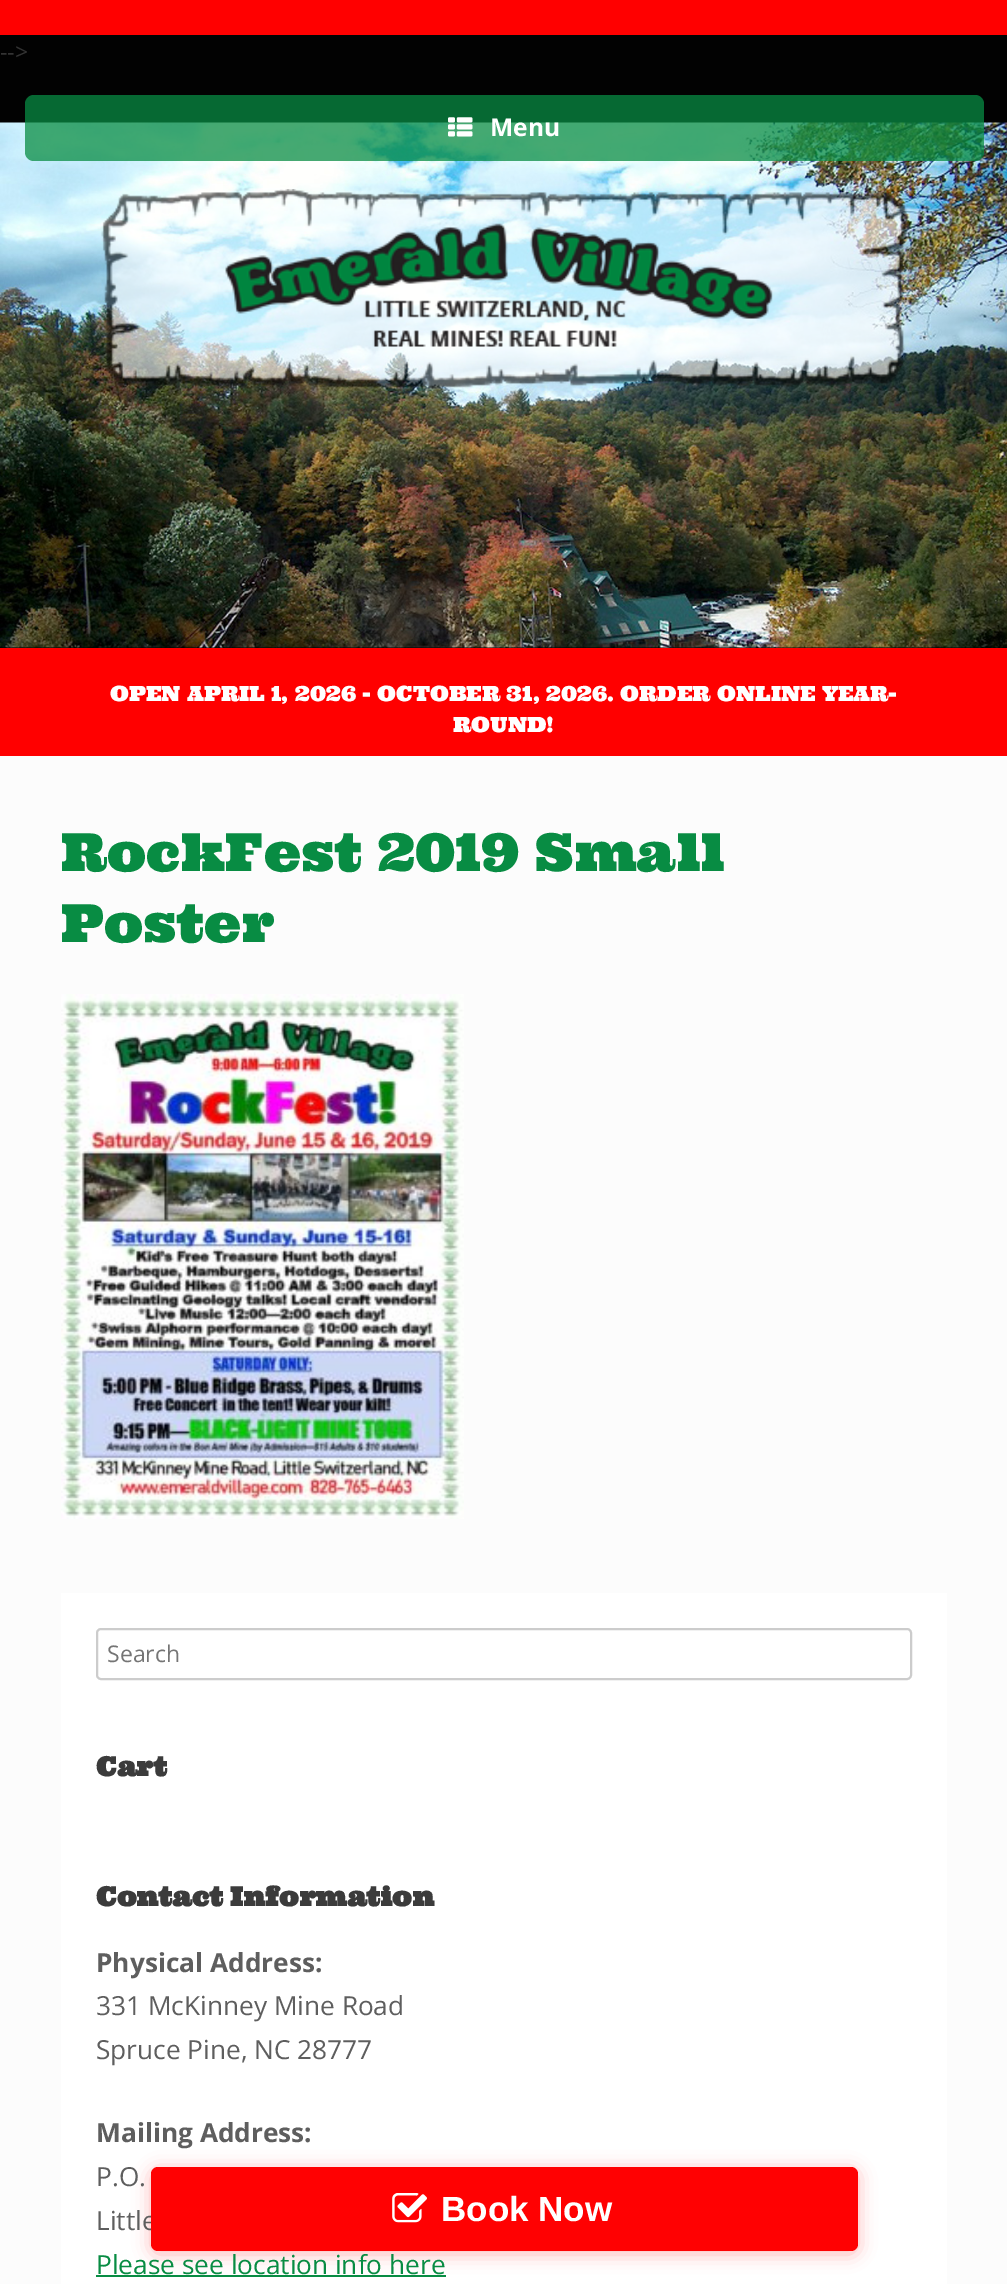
%!PS-Adobe-3.0
%%BoundingBox: 0 0 1007 2284
%%LanguageLevel: 3
%%Pages: 1
%%EndComments
%%BeginProlog
/setalpha { dup .setfillconstantalpha .setstrokeconstantalpha } def
/rrect { 5 dict begin { /r /h /w /y /x } { exch def } forall
  x r add y moveto x w add y 2 copy h add r arct x w add y h add x 1 index r arct
  x y h add x y r arct x y 2 copy exch w add exch r arct closepath end } def
/softshadow { 12 dict begin { /a /b /q /h /w /y /x } { exch def } forall gsave /was 0 def
  9 -2 -9 { dup b mul 4 div /e exch def 1 sub .425 mul 2.718 exch exp 1 add a .99 .min exch div /now exch def
    1 1 now sub 1 was sub div sub setalpha /was now def
    w h .min e 2 mul add 0 gt { x e sub y e sub w e 2 mul add h e 2 mul add
      q e add b .6 mul add w h .min 2 div e add .min 0 .max rrect fill } if } for grestore end } def
/drawimage { 5 dict begin { /h /w /y /x /name } { exch def } forall
  gsave x y translate w h scale
  w h 8 [w 0 0 h 0 0] name (r) file false 3 colorimage grestore end } def
%%EndProlog
%%BeginSetup
<< /PageSize [1007 2284] /PageUsesTransparency true >> setpagedevice
%%EndSetup
%%Page: 1 1
0 .pushpdf14devicefilter
0 2284 translate 1 -1 scale
4 setmiterlimit
0.008 setgray
0 0 1007 2284 rectfill
1 0 0 setrgbcolor
0 0 1007 35 rectfill
(images/3.raw) 0 122 1007 526 drawimage
0.75 setalpha
0.031 0.549 0.263 setrgbcolor
25 95 959 66 9 rrect fill
1 setalpha
(images/1.raw) 448 117 25 20 drawimage
(images/2.raw) 101 189 806 201 drawimage
1 0 0 setrgbcolor
0 648 1007 108 rectfill
0.988 setgray
0 756 1007 1528 rectfill
(images/4.raw) 61 994 403 525 drawimage
1 setgray
61 1593 886 691 rectfill
0.8 setgray
2 setlinewidth
97 1629 814 50 4 rrect stroke
0.031 0.549 0.263 setrgbcolor
96 2275 350 2 rectfill
1 0.004 0.008 setrgbcolor
151 2170 707 84 7 9 0.3 softshadow
/OpenSans-Regular [23 0 0 -23 0 0] selectfont
0.2 setgray
0 60 moveto (-->) show
/OpenSans-Bold [24.5 0 0 -24.5 0 0] selectfont
1 setgray
490 136 moveto (Menu) show
/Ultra-Regular [21 0 0 -21 0 0] selectfont
110 701 moveto (OPEN APRIL 1, 2026 - OCTOBER 31, 2026. ORDER ONLINE YEAR-) show
453 732 moveto (ROUND!) show
/Ultra-Regular [52.5 0 0 -52.5 0 0] selectfont
0.031 0.549 0.263 setrgbcolor
61 871 moveto (RockFest 2019 Small) show
61 942 moveto (Poster) show
/OpenSans-Regular [23 0 0 -23 0 0] selectfont
0.459 setgray
107 1662 moveto (Search) show
/Ultra-Bold [26.25 0 0 -26.25 0 0] selectfont
0.231 setgray
96 1776 moveto (Cart) show
96 1906 moveto (Contact Information) show
/OpenSans-Bold [26.25 0 0 -26.25 0 0] selectfont
0.369 setgray
96 1972 moveto (Physical Address:) show
/OpenSans-Regular [26.25 0 0 -26.25 0 0] selectfont
96 2015 moveto (331 McKinney Mine Road) show
96 2059 moveto (Spruce Pine, NC 28777) show
/OpenSans-Bold [26.25 0 0 -26.25 0 0] selectfont
96 2142 moveto (Mailing Address:) show
/OpenSans-Regular [26.25 0 0 -26.25 0 0] selectfont
96 2186 moveto (P.O.) show
96 2230 moveto (Little) show
0.031 0.549 0.263 setrgbcolor
96 2274 moveto (Please see location info here) show
1 0.004 0.008 setrgbcolor
151 2167 707 84 7 rrect fill
(images/5.raw) 392 2193 35 30 drawimage
/LiberationSans-Bold [35 0 0 -35 0 0] selectfont
1 setgray
441 2221 moveto (Book Now) show
.poppdf14devicefilter showpage
%%EOF
